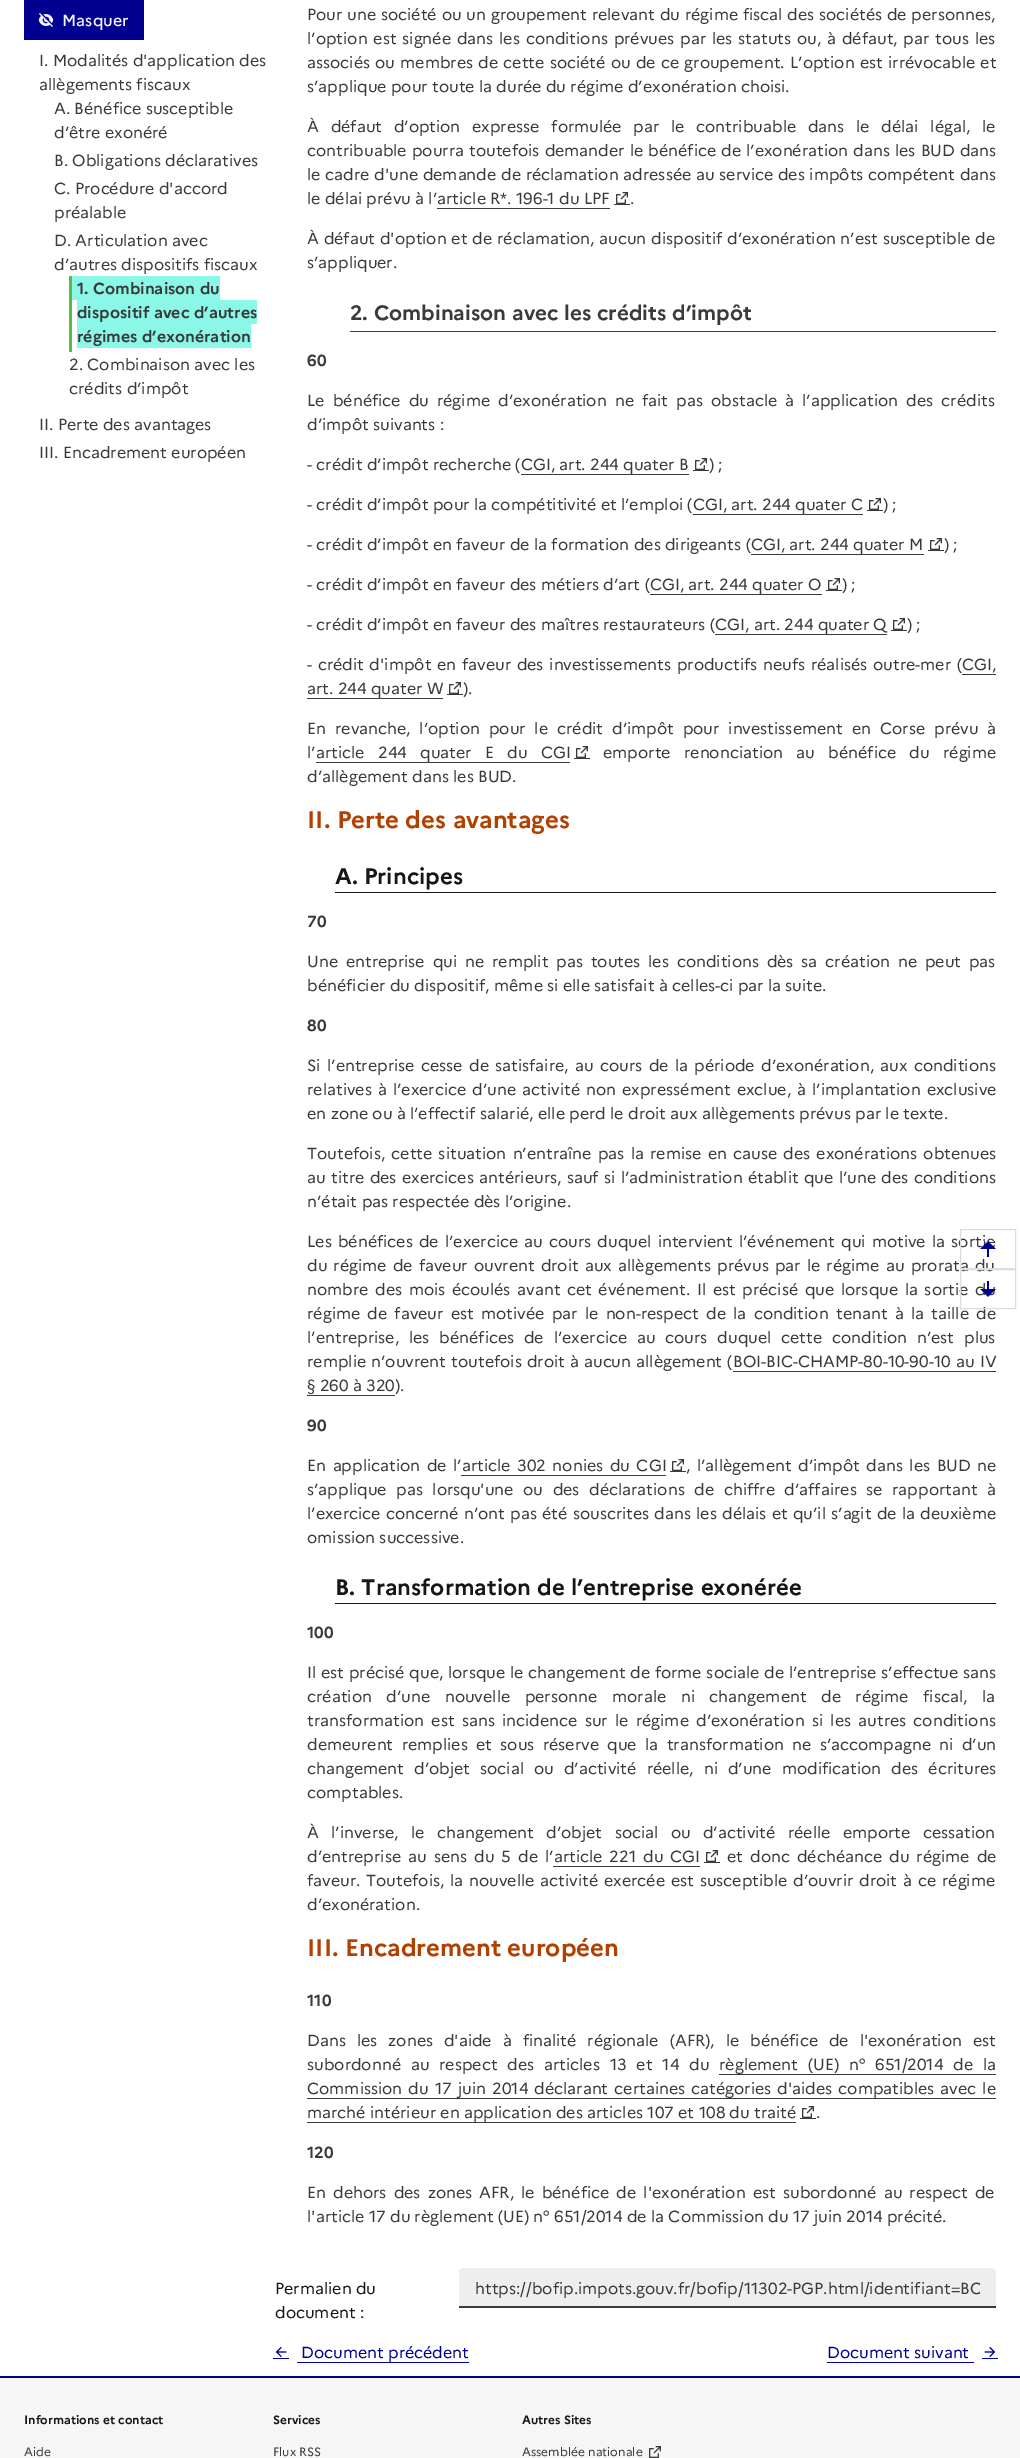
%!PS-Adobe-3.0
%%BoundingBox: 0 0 1020 2458
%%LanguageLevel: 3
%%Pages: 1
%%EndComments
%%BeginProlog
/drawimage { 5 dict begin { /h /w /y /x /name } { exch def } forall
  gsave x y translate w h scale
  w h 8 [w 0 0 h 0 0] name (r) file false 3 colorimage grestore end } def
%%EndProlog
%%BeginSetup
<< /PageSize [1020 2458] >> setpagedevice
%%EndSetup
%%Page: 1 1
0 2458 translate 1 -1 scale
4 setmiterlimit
1 setgray
0 0 1020 2458 rectfill
0 0 0.569 setrgbcolor
24 0 120 40 rectfill
(images/1.raw) 38 13 16 14 drawimage
0.329 0.737 0.294 setrgbcolor
69 276 3 76 rectfill
0.545 0.973 0.906 setrgbcolor
72 276 148 24 rectfill
77 300 180 24 rectfill
77 324 174 24 rectfill
0.227 setgray
437 208 173 1 rectfill
614 204 16 1 rectfill
(images/2.raw) 616 192 12 12 drawimage
350 331 646 1 rectfill
521 474 168 1 rectfill
693 470 16 1 rectfill
(images/2.raw) 695 458 12 12 drawimage
693 514 170 1 rectfill
867 510 16 1 rectfill
(images/2.raw) 869 498 12 12 drawimage
751 554 173 1 rectfill
928 550 16 1 rectfill
(images/2.raw) 930 538 12 12 drawimage
650 594 172 1 rectfill
826 590 16 1 rectfill
(images/2.raw) 828 578 12 12 drawimage
715 634 172 1 rectfill
891 630 16 1 rectfill
(images/2.raw) 893 618 12 12 drawimage
962 674 34 1 rectfill
307 698 136 1 rectfill
447 694 16 1 rectfill
(images/2.raw) 449 682 12 12 drawimage
316 762 254 1 rectfill
574 758 16 1 rectfill
(images/2.raw) 576 746 12 12 drawimage
0.086 setgray
335 892 661 1 rectfill
0.227 setgray
733 1371 263 1 rectfill
307 1395 88 1 rectfill
461 1475 205 1 rectfill
670 1471 16 1 rectfill
(images/2.raw) 672 1459 12 12 drawimage
0.086 setgray
335 1603 661 1 rectfill
0.227 setgray
553 1866 147 1 rectfill
704 1862 16 1 rectfill
(images/2.raw) 706 1850 12 12 drawimage
719 2074 277 1 rectfill
307 2098 689 1 rectfill
307 2122 489 1 rectfill
800 2118 16 1 rectfill
(images/2.raw) 802 2106 12 12 drawimage
0.933 setgray
newpath 463 2268 moveto 992 2268 lineto 994 2268 996 2270 996 2272 curveto 996 2308 lineto 459 2308 lineto 459 2272 lineto 459 2270 461 2268 463 2268 curveto closepath fill
0.227 setgray
459 2306 537 2 rectfill
0 0 0.569 setrgbcolor
273 2358 16 1 rectfill
297 2362 172 1 rectfill
(images/3.raw) 275 2346 12 12 drawimage
827 2362 147 1 rectfill
982 2358 16 1 rectfill
(images/4.raw) 984 2346 12 12 drawimage
0 2376 1020 2 rectfill
0.965 setgray
0 2378 1020 80 rectfill
(images/7.raw) 649 2446 12 12 drawimage
/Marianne-Medium [16 0 0 -16 0 0] selectfont
0.961 0.961 0.996 setrgbcolor
62 26 moveto (Masquer) show
/Marianne-Regular [16 0 0 -16 0 0] selectfont
0.227 setgray
39 66 moveto (I. Modalités d'application des) show
39 90 moveto (allègements fiscaux) show
54 114 moveto (A. Bénéfice susceptible) show
54 138 moveto (d’être exonéré) show
54 166 moveto (B. Obligations déclaratives) show
54 194 moveto (C. Procédure d'accord) show
54 218 moveto (préalable) show
54 246 moveto (D. Articulation avec) show
54 270 moveto (d’autres dispositifs fiscaux) show
/Marianne-Bold [16 0 0 -16 0 0] selectfont
77 294 moveto (1. Combinaison du) show
77 318 moveto (dispositif avec d’autres) show
77 342 moveto (régimes d’exonération) show
/Marianne-Regular [16 0 0 -16 0 0] selectfont
69 370 moveto (2. Combinaison avec les) show
69 394 moveto (crédits d’impôt) show
39 430 moveto (II. Perte des avantages) show
39 458 moveto (III. Encadrement européen) show
307 20 moveto 0.5 0 32 (Pour une société ou un groupement relevant du régime fiscal des sociétés de personnes,) widthshow
307 44 moveto 1.5 0 32 (l’option est signée dans les conditions prévues par les statuts ou, à défaut, par tous les) widthshow
307 68 moveto 0.9 0 32 (associés ou membres de cette société ou de ce groupement. L’option est irrévocable et) widthshow
307 92 moveto (s’applique pour toute la durée du régime d’exonération choisi.) show
307 132 moveto 7.4 0 32 (À défaut d’option expresse formulée par le contribuable dans le délai légal, le) widthshow
307 156 moveto 0.75 0 32 (contribuable pourra toutefois demander le bénéfice de l’exonération dans les BUD dans) widthshow
307 180 moveto 0.4 0 32 (le cadre d'une demande de réclamation adressée au service des impôts compétent dans) widthshow
307 204 moveto (le délai prévu à l’article R*. 196-1 du LPF) show
630 204 moveto (.) show
307 244 moveto 0.5 0 32 (À défaut d'option et de réclamation, aucun dispositif d’exonération n’est susceptible de) widthshow
307 268 moveto (s’appliquer.) show
/Marianne-Bold [20.75 0 0 -20.75 0 0] selectfont
350 320 moveto (2. Combinaison avec les crédits d’impôt) show
/Marianne-Bold [16 0 0 -16 0 0] selectfont
307 366 moveto (60) show
/Marianne-Regular [16 0 0 -16 0 0] selectfont
307 406 moveto 3.75 0 32 (Le bénéfice du régime d’exonération ne fait pas obstacle à l’application des crédits) widthshow
307 430 moveto (d’impôt suivants :) show
307 470 moveto (- crédit d’impôt recherche \(CGI, art. 244 quater B) show
709 470 moveto (\) ;) show
307 510 moveto (- crédit d’impôt pour la compétitivité et l’emploi \(CGI, art. 244 quater C) show
883 510 moveto (\) ;) show
307 550 moveto (- crédit d’impôt en faveur de la formation des dirigeants \(CGI, art. 244 quater M) show
944 550 moveto (\) ;) show
307 590 moveto (- crédit d’impôt en faveur des métiers d’art \(CGI, art. 244 quater O) show
842 590 moveto (\) ;) show
307 630 moveto (- crédit d’impôt en faveur des maîtres restaurateurs \(CGI, art. 244 quater Q) show
907 630 moveto (\) ;) show
307 670 moveto 1.4 0 32 (- crédit d'impôt en faveur des investissements productifs neufs réalisés outre-mer \() widthshow
962 670 moveto (CGI,) show
307 694 moveto (art. 244 quater W) show
463 694 moveto (\).) show
307 734 moveto 4.6 0 32 (En revanche, l’option pour le crédit d’impôt pour investissement en Corse prévu à) widthshow
307 758 moveto (l’) show
316 758 moveto 9 0 32 (article 244 quater E du CGI) widthshow
603 758 moveto 9 0 32 (emporte renonciation au bénéfice du régime) widthshow
307 782 moveto (d’allègement dans les BUD.) show
/Marianne-Bold [24 0 0 -24 0 0] selectfont
0.702 0.251 0 setrgbcolor
307 828 moveto (II. Perte des avantages) show
/Marianne-Bold [22.4 0 0 -22.4 0 0] selectfont
0.086 setgray
335 884 moveto (A. Principes) show
/Marianne-Bold [16 0 0 -16 0 0] selectfont
0.227 setgray
307 927 moveto (70) show
/Marianne-Regular [16 0 0 -16 0 0] selectfont
307 967 moveto 3.5 0 32 (Une entreprise qui ne remplit pas toutes les conditions dès sa création ne peut pas) widthshow
307 991 moveto (bénéficier du dispositif, même si elle satisfait à celles-ci par la suite.) show
/Marianne-Bold [16 0 0 -16 0 0] selectfont
307 1031 moveto (80) show
/Marianne-Regular [16 0 0 -16 0 0] selectfont
307 1071 moveto 2 0 32 (Si l’entreprise cesse de satisfaire, au cours de la période d’exonération, aux conditions) widthshow
307 1095 moveto 1.75 0 32 (relatives à l’exercice d’une activité non expressément exclue, à l’implantation exclusive) widthshow
307 1119 moveto (en zone ou à l’effectif salarié, elle perd le droit aux allègements prévus par le texte.) show
307 1159 moveto 1.9 0 32 (Toutefois, cette situation n’entraîne pas la remise en cause des exonérations obtenues) widthshow
307 1183 moveto 1 0 32 (au titre des exercices antérieurs, sauf si l’administration établit que l’une des conditions) widthshow
307 1207 moveto (n’était pas respectée dès l’origine.) show
307 1247 moveto 1.8 0 32 (Les bénéfices de l’exercice au cours duquel intervient l’événement qui motive la sortie) widthshow
307 1271 moveto 1.8 0 32 (du régime de faveur ouvrent droit aux allègements prévus par le régime au prorata du) widthshow
307 1295 moveto 2.25 0 32 (nombre des mois écoulés avant cet événement. Il est précisé que lorsque la sortie d) widthshow
307 1319 moveto 2.9 0 32 (régime de faveur est motivée par le non-respect de la condition tenant à la taille de) widthshow
307 1343 moveto 5.5 0 32 (l’entreprise, les bénéfices de l’exercice au cours duquel cette condition n’est plus) widthshow
307 1367 moveto 0.75 0 32 (remplie n’ouvrent toutefois droit à aucun allègement \() widthshow
733 1367 moveto 1 0 32 (BOI-BIC-CHAMP-80-10-90-10 au IV) widthshow
307 1391 moveto (§ 260 à 320\).) show
/Marianne-Bold [16 0 0 -16 0 0] selectfont
307 1431 moveto (90) show
/Marianne-Regular [16 0 0 -16 0 0] selectfont
307 1471 moveto 2.25 0 32 (En application de l’article 302 nonies du CGI) widthshow
686 1471 moveto 2.25 0 32 (, l’allègement d’impôt dans les BUD ne) widthshow
307 1495 moveto 5.25 0 32 (s’applique pas lorsqu'une ou des déclarations de chiffre d’affaires se rapportant à) widthshow
307 1519 moveto 0.9 0 32 (l’exercice concerné n’ont pas été souscrites dans les délais et qu’il s’agit de la deuxième) widthshow
307 1543 moveto (omission successive.) show
/Marianne-Bold [22.4 0 0 -22.4 0 0] selectfont
0.086 setgray
335 1595 moveto (B. Transformation de l’entreprise exonérée) show
/Marianne-Bold [16 0 0 -16 0 0] selectfont
0.227 setgray
307 1638 moveto (100) show
/Marianne-Regular [16 0 0 -16 0 0] selectfont
307 1678 moveto 0.4 0 32 (Il est précisé que, lorsque le changement de forme sociale de l’entreprise s’effectue sans) widthshow
307 1702 moveto 10.25 0 32 (création d’une nouvelle personne morale ni changement de régime fiscal, la) widthshow
307 1726 moveto 2.9 0 32 (transformation est sans incidence sur le régime d’exonération si les autres conditions) widthshow
307 1750 moveto 4 0 32 (demeurent remplies et sous réserve que la transformation ne s’accompagne ni d’un) widthshow
307 1774 moveto 5.75 0 32 (changement d’objet social ou d’activité réelle, ni d’une modification des écritures) widthshow
307 1798 moveto (comptables.) show
307 1838 moveto 8 0 32 (À l’inverse, le changement d’objet social ou d’activité réelle emporte cessation) widthshow
307 1862 moveto 2.75 0 32 (d’entreprise au sens du 5 de l’article 221 du CGI) widthshow
727 1862 moveto 2.75 0 32 (et donc déchéance du régime de) widthshow
307 1886 moveto 1.5 0 32 (faveur. Toutefois, la nouvelle activité exercée est susceptible d’ouvrir droit à ce régime) widthshow
307 1910 moveto (d’exonération.) show
/Marianne-Bold [24 0 0 -24 0 0] selectfont
0.702 0.251 0 setrgbcolor
307 1956 moveto (III. Encadrement européen) show
/Marianne-Bold [16 0 0 -16 0 0] selectfont
0.227 setgray
307 2006 moveto (110) show
/Marianne-Regular [16 0 0 -16 0 0] selectfont
307 2046 moveto 6.6 0 32 (Dans les zones d'aide à finalité régionale \(AFR\), le bénéfice de l'exonération est) widthshow
307 2070 moveto 5.5 0 32 (subordonné au respect des articles 13 et 14 du) widthshow
719 2070 moveto 5.5 0 32 (règlement \(UE\) n° 651/2014 de la) widthshow
307 2094 moveto 1.75 0 32 (Commission du 17 juin 2014 déclarant certaines catégories d'aides compatibles avec le) widthshow
307 2118 moveto (marché intérieur en application des articles 107 et 108 du traité) show
816 2118 moveto (.) show
/Marianne-Bold [16 0 0 -16 0 0] selectfont
307 2158 moveto (120) show
/Marianne-Regular [16 0 0 -16 0 0] selectfont
307 2198 moveto 2.75 0 32 (En dehors des zones AFR, le bénéfice de l'exonération est subordonné au respect de) widthshow
307 2222 moveto (l'article 17 du règlement \(UE\) n° 651/2014 de la Commission du 17 juin 2014 précité.) show
0.086 setgray
275 2294 moveto (Permalien du) show
275 2318 moveto (document :) show
gsave
475 2276 505 24 rectclip
0.227 setgray
475 2294 moveto (https://bofip.impots.gouv.fr/bofip/11302-PGP.html/identifiant=BO) show
grestore
0 0 0.569 setrgbcolor
301 2358 moveto (Document précédent) show
827 2358 moveto (Document suivant) show
0.867 setgray
960.5 1229.5 55 39 rectstroke
(images/5.raw) 980 1241 16 16 drawimage
960.5 1269.5 55 39 rectstroke
(images/6.raw) 980 1281 16 16 drawimage
/Marianne-Bold [12 0 0 -12 0 0] selectfont
0.086 setgray
24 2424 moveto (Informations et contact) show
/Marianne-Regular [12 0 0 -12 0 0] selectfont
0.227 setgray
24 2456 moveto (Aide) show
/Marianne-Bold [12 0 0 -12 0 0] selectfont
0.086 setgray
273 2424 moveto (Services) show
/Marianne-Regular [12 0 0 -12 0 0] selectfont
0.227 setgray
273 2456 moveto (Flux RSS) show
/Marianne-Bold [12 0 0 -12 0 0] selectfont
0.086 setgray
522 2424 moveto (Autres Sites) show
/Marianne-Regular [12 0 0 -12 0 0] selectfont
0.227 setgray
522 2456 moveto (Assemblée nationale) show
showpage
%%EOF
